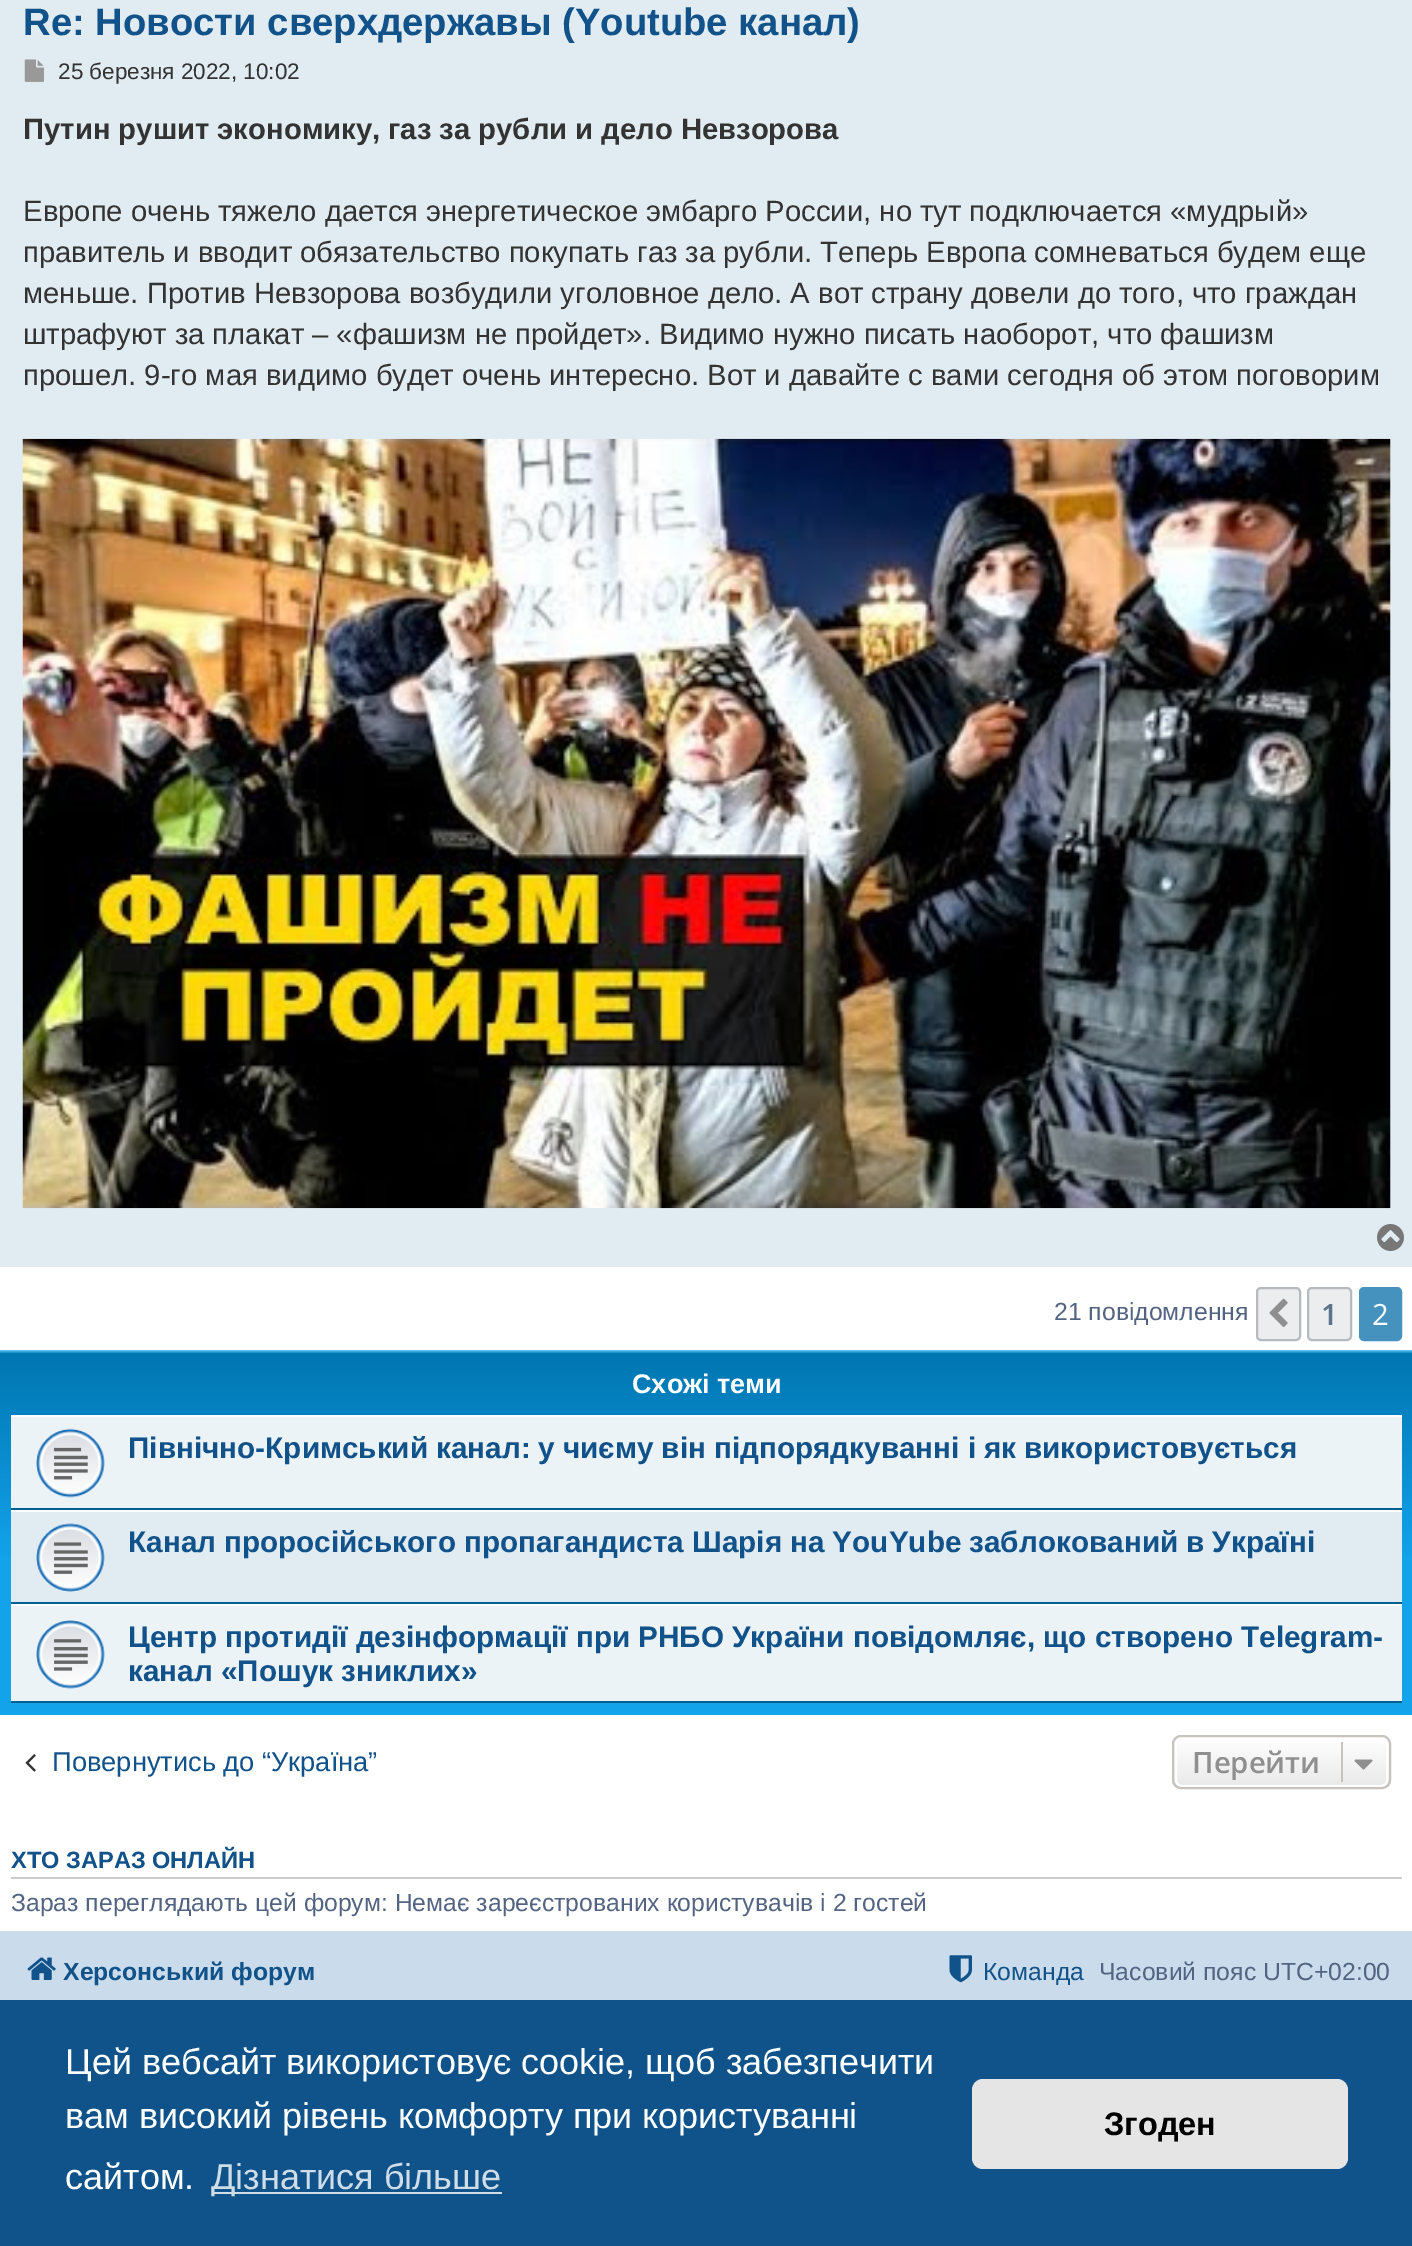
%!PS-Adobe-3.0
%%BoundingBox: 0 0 1412 2246
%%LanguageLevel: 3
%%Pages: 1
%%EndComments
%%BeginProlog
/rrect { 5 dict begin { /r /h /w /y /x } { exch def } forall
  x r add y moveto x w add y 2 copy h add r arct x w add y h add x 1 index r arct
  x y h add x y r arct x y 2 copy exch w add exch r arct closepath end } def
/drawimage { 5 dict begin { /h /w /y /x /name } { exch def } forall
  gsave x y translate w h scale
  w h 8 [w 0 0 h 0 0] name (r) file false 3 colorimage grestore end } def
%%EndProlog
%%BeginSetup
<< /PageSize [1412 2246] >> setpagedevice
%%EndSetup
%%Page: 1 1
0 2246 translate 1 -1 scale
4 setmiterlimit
1 setgray
0 0 1412 2246 rectfill
0.882 0.922 0.949 setrgbcolor
0 0 1412 1267 rectfill
(images/1.raw) 24 59 20 23 drawimage
(images/2.raw) 22 438 1369 771 drawimage
(images/3.raw) 1377 1224 27 27 drawimage
0.925 0.929 0.933 setrgbcolor
1257 1288 43 52 4 rrect gsave fill grestore
0.706 0.729 0.753 setrgbcolor
2 setlinewidth
stroke
(images/4.raw) 1269 1298 19 29 drawimage
0.925 0.929 0.933 setrgbcolor
1308 1288 43 52 4 rrect gsave fill grestore
0.706 0.729 0.753 setrgbcolor
stroke
0.275 0.573 0.749 setrgbcolor
1360 1288 41 52 4 rrect gsave fill grestore
stroke
gsave newpath 0 1350 moveto 1412 1350 lineto 1412 1715 lineto 0 1715 lineto closepath clip newpath
<< /ShadingType 2 /ColorSpace /DeviceRGB /Coords [707 1350 707 1715] /Extend [true true] /Function << /FunctionType 3 /Domain [0 1] /Functions [<< /FunctionType 2 /Domain [0 1] /C0 [0.416 0.808 1] /C1 [0 0.463 0.694] /N 1 >> << /FunctionType 2 /Domain [0 1] /C0 [0 0.463 0.694] /C1 [0.071 0.639 0.922] /N 1 >> << /FunctionType 2 /Domain [0 1] /C0 [0.071 0.639 0.922] /C1 [0.071 0.639 0.922] /N 1 >>] /Bounds [0.01 0.57] /Encode [0 1 0 1 0 1] >> >> shfill grestore
0.925 0.953 0.969 setrgbcolor
11 1417 1391 91 rectfill
1 setgray
11 1415 1391 2 rectfill
0 0.376 0.561 setrgbcolor
11 1508 1391 2 rectfill
(images/5.raw) 36 1428 69 70 drawimage
0.882 0.922 0.949 setrgbcolor
11 1512 1391 90 rectfill
1 setgray
11 1510 1391 2 rectfill
0 0.376 0.561 setrgbcolor
11 1602 1391 2 rectfill
(images/6.raw) 36 1523 69 69 drawimage
0.925 0.953 0.969 setrgbcolor
11 1606 1391 95 rectfill
1 setgray
11 1604 1391 2 rectfill
0 0.376 0.561 setrgbcolor
11 1701 1391 2 rectfill
(images/7.raw) 36 1620 69 69 drawimage
(images/8.raw) 25 1754 11 18 drawimage
gsave
1172 1735 219 54 9 rrect clip newpath
gsave newpath 1172 1737 moveto 1391 1737 lineto 1391 1787 lineto 1172 1787 lineto closepath clip newpath
<< /ShadingType 2 /ColorSpace /DeviceRGB /Coords [1281 1737 1281 1787] /Extend [true true] /Function << /FunctionType 2 /Domain [0 1] /C0 [1 1 1] /C1 [0.914 0.914 0.914] /N 1 >> >> shfill grestore
grestore
1 setgray
1176 1738 211 48 6 rrect stroke
0.78 0.765 0.749 setrgbcolor
1173 1736 217 52 8 rrect stroke
1341 1742 2 40 rectfill
(images/9.raw) 1354 1759 19 11 drawimage
0.8 setgray
11 1877 1391 2 rectfill
0.792 0.863 0.922 setrgbcolor
0 1931 1412 69 rectfill
(images/10.raw) 27 1957 29 23 drawimage
(images/11.raw) 949 1955 23 28 drawimage
0.059 0.325 0.541 setrgbcolor
0 2000 1412 246 rectfill
0.812 0.867 0.91 setrgbcolor
212 2192 290 2 rectfill
0.898 setgray
972 2079 376 90 11 rrect fill
/LiberationSans-Bold [38.25 0 0 -38.25 0 0] selectfont
0.063 0.322 0.537 setrgbcolor
23 35 moveto (Re: Новости сверхдержавы \(Youtube канал\)) show
/LiberationSans-Regular [22.5 0 0 -22.5 0 0] selectfont
0.2 setgray
58 79 moveto (25 березня 2022, 10:02) show
/LiberationSans-Bold [29.25 0 0 -29.25 0 0] selectfont
23 139 moveto (Путин рушит экономику, газ за рубли и дело Невзорова) show
/LiberationSans-Regular [29.25 0 0 -29.25 0 0] selectfont
23 221 moveto (Европе очень тяжело дается энергетическое эмбарго России, но тут подключается «мудрый») show
23 262 moveto (правитель и вводит обязательство покупать газ за рубли. Теперь Европа сомневаться будем еще) show
23 303 moveto (меньше. Против Невзорова возбудили уголовное дело. А вот страну довели до того, что граждан) show
23 344 moveto (штрафуют за плакат – «фашизм не пройдет». Видимо нужно писать наоборот, что фашизм) show
23 385 moveto (прошел. 9-го мая видимо будет очень интересно. Вот и давайте с вами сегодня об этом поговорим) show
/LiberationSans-Regular [24.75 0 0 -24.75 0 0] selectfont
0.325 0.392 0.51 setrgbcolor
1054 1320 moveto (21 повідомлення) show
/OpenSans-SemiBold [29.25 0 0 -29.25 0 0] selectfont
0.361 0.459 0.549 setrgbcolor
1321 1325 moveto (1) show
/OpenSans-Regular [29.25 0 0 -29.25 0 0] selectfont
1 setgray
1372 1325 moveto (2) show
/LiberationSans-Bold [27 0 0 -27 0 0] selectfont
632 1393 moveto (Схожі теми) show
/LiberationSans-Bold [29.7 0 0 -29.7 0 0] selectfont
0.063 0.322 0.537 setrgbcolor
128 1458 moveto -0.25 0 32 (Північно-Кримський канал: у чиєму він підпорядкуванні і як використовується) widthshow
128 1552 moveto -0.25 0 32 (Канал проросійського пропагандиста Шарія на YouYube заблокований в Україні) widthshow
128 1647 moveto -0.1 0 32 (Центр протидії дезінформації при РНБО України повідомляє, що створено Telegram-) widthshow
128 1681 moveto (канал «Пошук зниклих») show
/LiberationSans-Regular [27.25 0 0 -27.25 0 0] selectfont
52 1771 moveto (Повернутись до “Україна”) show
/OpenSans-SemiBold [29.25 0 0 -29.25 0 0] selectfont
0.561 setgray
1192 1773 moveto (Перейти) show
/LiberationSans-Bold [23.6 0 0 -23.6 0 0] selectfont
0.063 0.322 0.537 setrgbcolor
11 1868 moveto (ХТО ЗАРАЗ ОНЛАЙН) show
/LiberationSans-Regular [24.75 0 0 -24.75 0 0] selectfont
0.325 0.392 0.51 setrgbcolor
11 1911 moveto (Зараз переглядають цей форум: Немає зареєстрованих користувачів і 2 гостей) show
/LiberationSans-Bold [24.75 0 0 -24.75 0 0] selectfont
0.063 0.322 0.537 setrgbcolor
63 1980 moveto (Херсонський форум) show
/LiberationSans-Regular [24.75 0 0 -24.75 0 0] selectfont
983 1980 moveto (Команда) show
0.325 0.392 0.51 setrgbcolor
1099 1980 moveto (Часовий пояс UTC+02:00) show
/LiberationSans-Regular [36 0 0 -36 0 0] selectfont
1 setgray
65 2074 moveto (Цей вебсайт використовує cookie, щоб забезпечити) show
65 2128 moveto (вам високий рівень комфорту при користуванні) show
65 2189 moveto (сайтом.) show
0.812 0.867 0.91 setrgbcolor
211 2189 moveto (Дізнатися більше) show
/LiberationSans-Bold [32.5 0 0 -32.5 0 0] selectfont
0 setgray
1104 2135 moveto (Згоден) show
showpage
%%EOF
